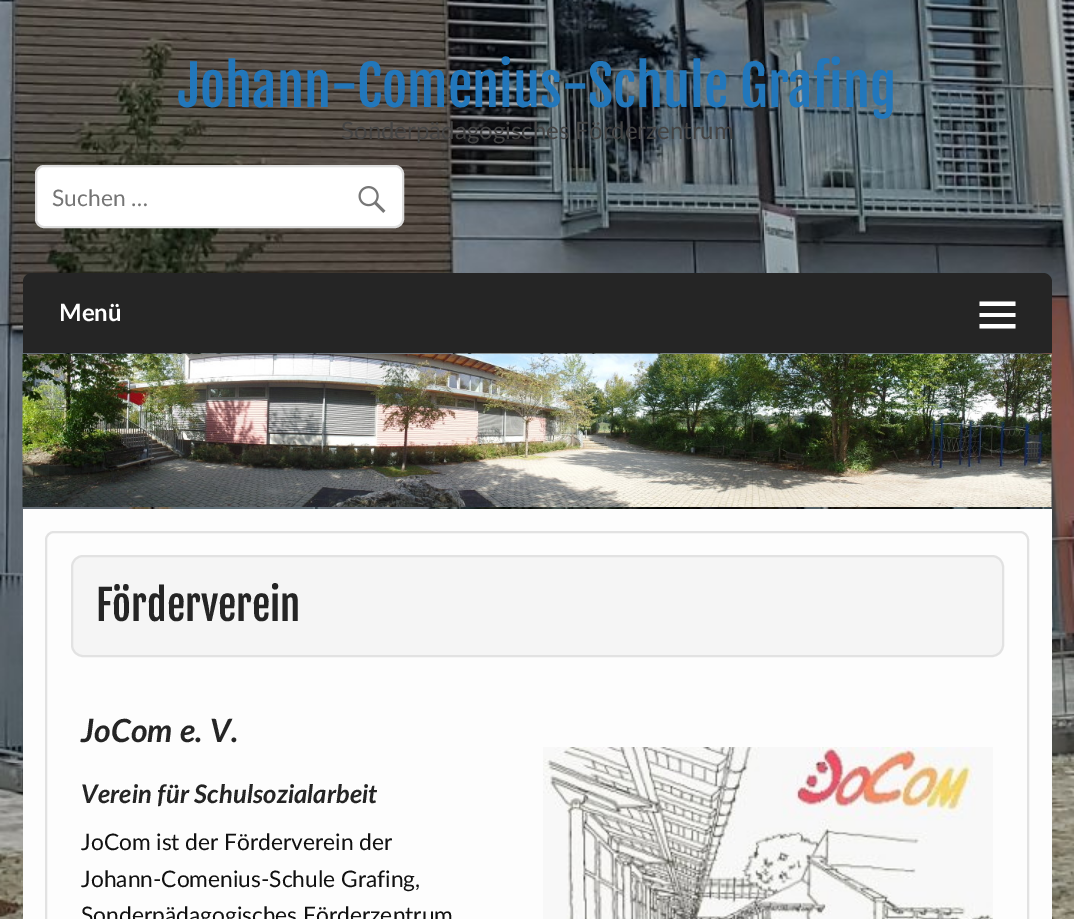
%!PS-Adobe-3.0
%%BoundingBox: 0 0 1074 919
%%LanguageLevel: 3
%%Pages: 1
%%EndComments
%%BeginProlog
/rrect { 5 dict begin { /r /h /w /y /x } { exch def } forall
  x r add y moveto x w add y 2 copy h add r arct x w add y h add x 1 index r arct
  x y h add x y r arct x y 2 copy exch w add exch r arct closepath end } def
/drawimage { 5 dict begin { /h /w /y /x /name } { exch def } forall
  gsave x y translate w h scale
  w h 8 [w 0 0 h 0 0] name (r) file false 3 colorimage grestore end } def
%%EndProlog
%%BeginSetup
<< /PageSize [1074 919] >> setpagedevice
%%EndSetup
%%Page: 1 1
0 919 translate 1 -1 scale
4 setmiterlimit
1 setgray
0 0 1074 919 rectfill
(images/1.raw) 0 0 1074 919 drawimage
36 166 367 61 8 rrect gsave fill grestore
0.867 setgray
2 setlinewidth
stroke
(images/2.raw) 358 186 28 27 drawimage
0.145 setgray
newpath 32 273 moveto 1043 273 lineto 1048 273 1052 277 1052 282 curveto 1052 353 lineto 23 353 lineto 23 282 lineto 23 277 27 273 32 273 curveto closepath fill
1 setgray
newpath 979.5 328.5 moveto 979.5 324 lineto 1015.5 324 lineto 1015.5 328.5 lineto closepath 979.5 301.5 moveto 1015.5 301.5 lineto 1015.5 306 lineto 979.5 306 lineto closepath 979.5 317 moveto 979.5 313 lineto 1015.5 313 lineto 1015.5 317 lineto closepath fill
(images/3.raw) 22 354 1030 153 drawimage
0.992 setgray
23 509 1029 410 rectfill
0.886 setgray
46 532 982 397 8 rrect stroke
0.961 setgray
72 556 931 100 11 rrect gsave fill grestore
0.886 setgray
stroke
(images/4.raw) 543 747 450 172 drawimage
/FjallaOne-Regular [54.75 0 0 -54.75 0 0] selectfont
0.133 0.467 0.733 setrgbcolor
178 107 moveto (Johann-Comenius-Schule Grafing) show
/Lato-Regular [24 0 0 -24 0 0] selectfont
0.267 setgray
341 139 moveto (Sonderpädagogisches Förderzentrum) show
/Lato-Regular [22.75 0 0 -22.75 0 0] selectfont
0.459 setgray
52 206 moveto (Suchen …) show
/Lato-Bold [24 0 0 -24 0 0] selectfont
1 setgray
59 321 moveto (Menü) show
/FjallaOne-Regular [41 0 0 -41 0 0] selectfont
0.145 setgray
96 621 moveto (Förderverein) show
/Lato-BoldItalic [32 0 0 -32 0 0] selectfont
81 742 moveto (JoCom e. V.) show
/Lato-BoldItalic [25.6 0 0 -25.6 0 0] selectfont
81 803 moveto (Verein für Schulsozialarbeit) show
/Lato-Regular [22.75 0 0 -22.75 0 0] selectfont
0.067 setgray
81 850 moveto (JoCom ist der Förderverein der) show
81 887 moveto (Johann-Comenius-Schule Grafing,) show
81 923 moveto (Sonderpädagogisches Förderzentrum) show
showpage
%%EOF
